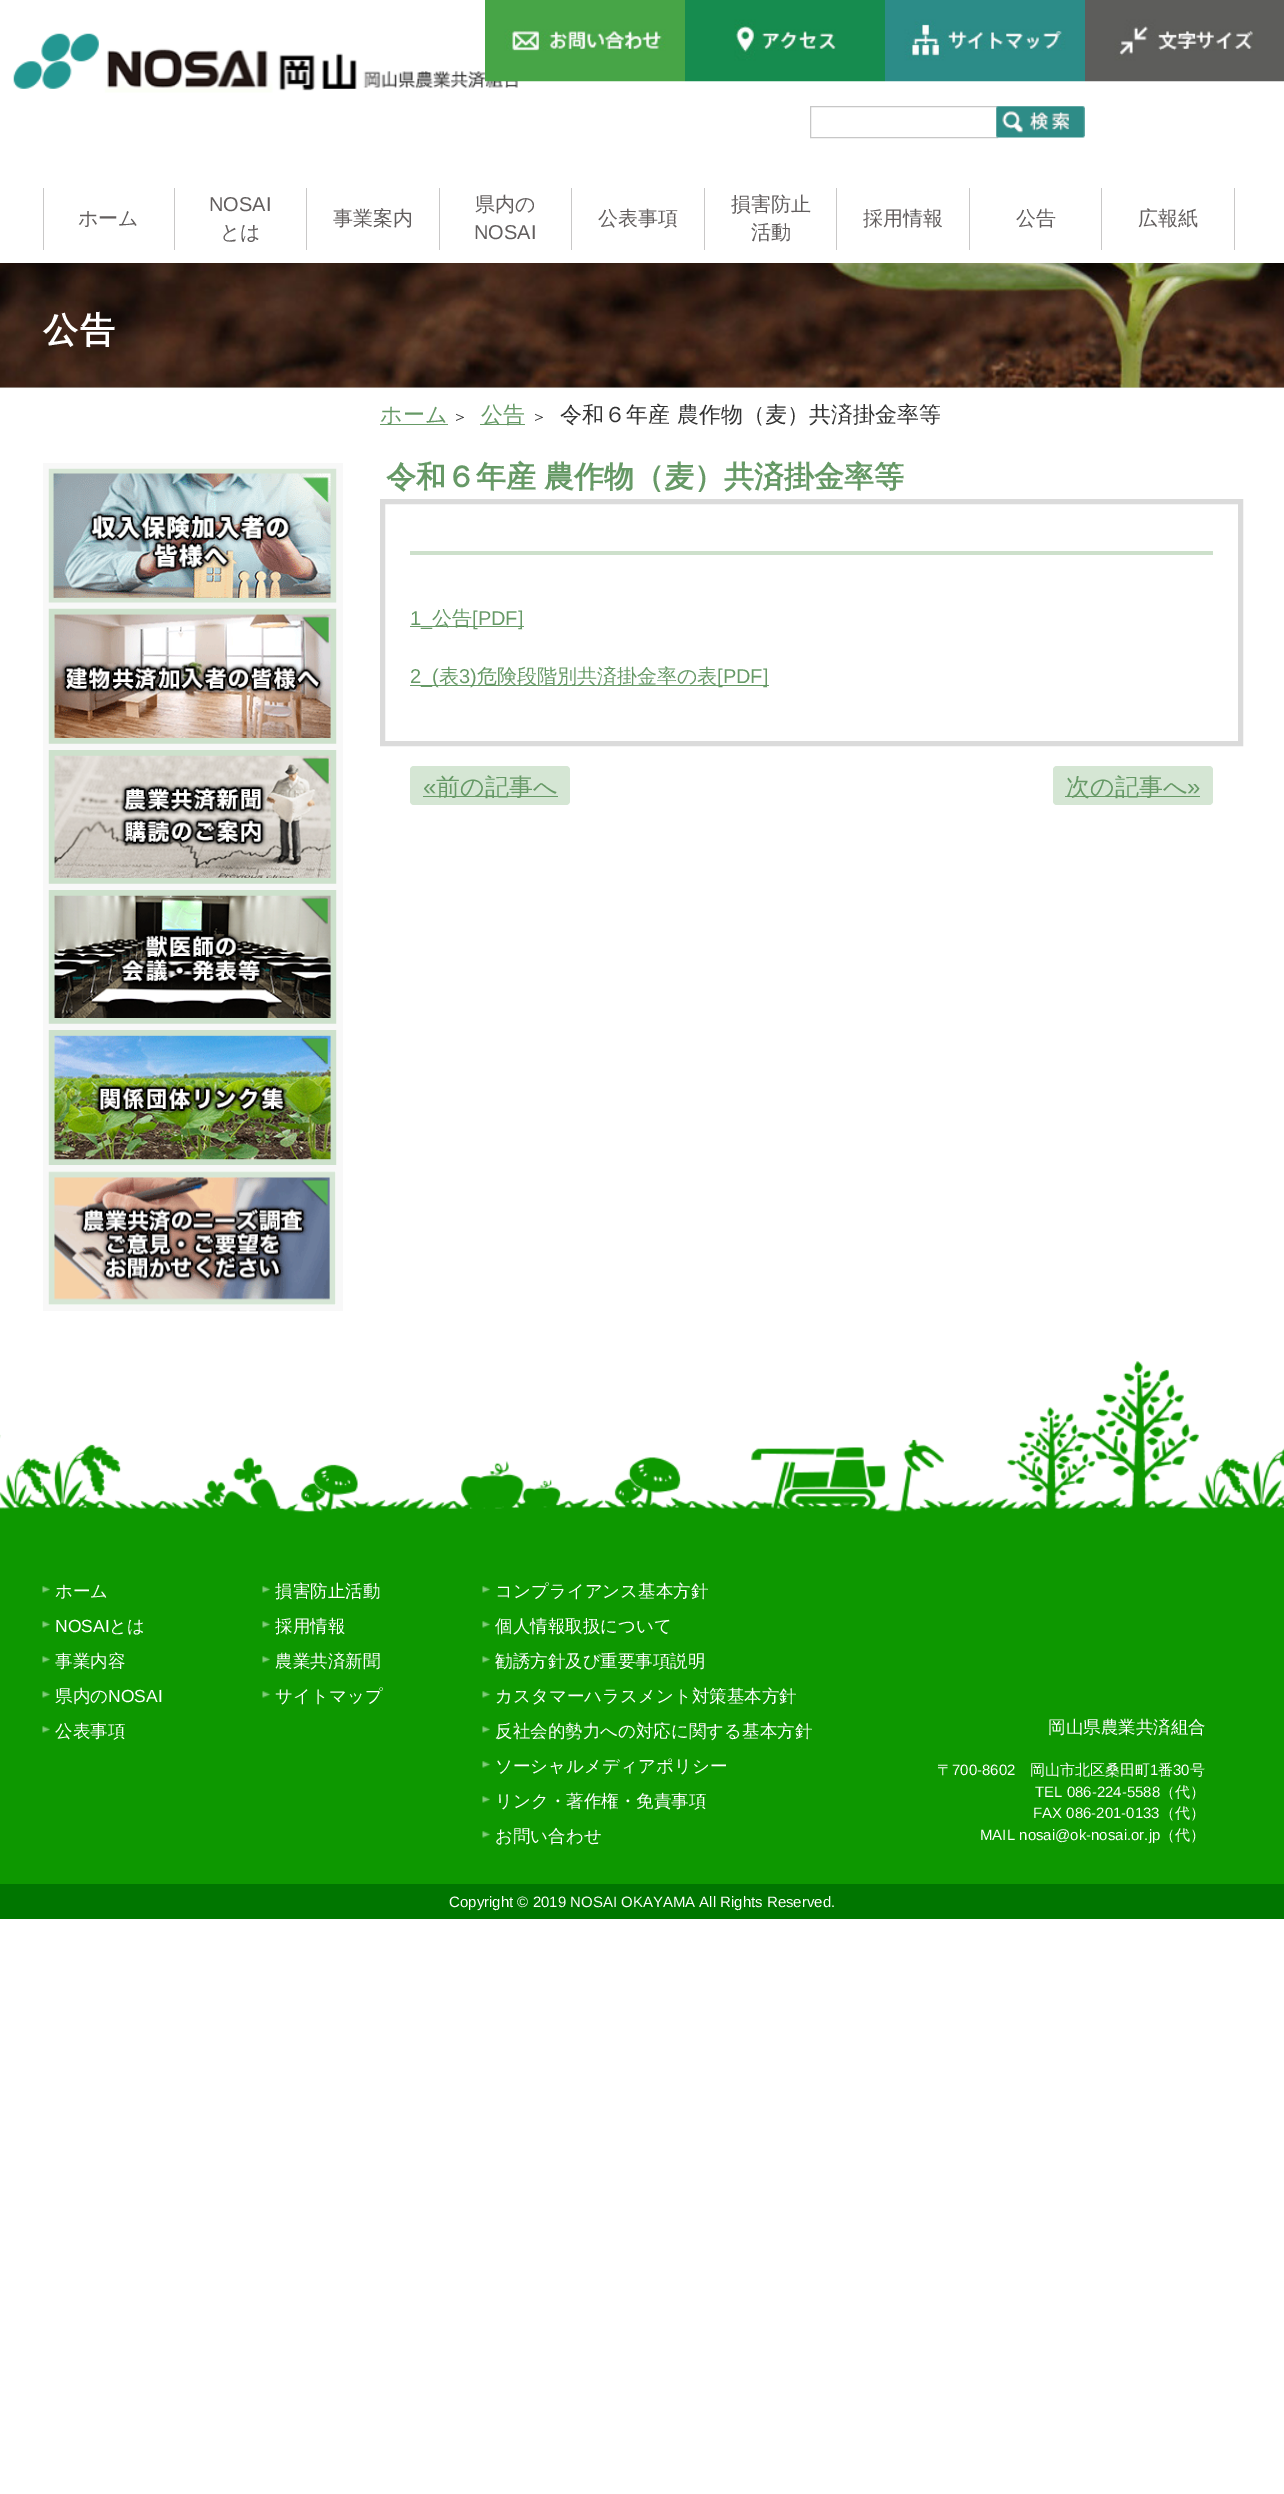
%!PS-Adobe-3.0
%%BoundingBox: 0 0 1284 2494
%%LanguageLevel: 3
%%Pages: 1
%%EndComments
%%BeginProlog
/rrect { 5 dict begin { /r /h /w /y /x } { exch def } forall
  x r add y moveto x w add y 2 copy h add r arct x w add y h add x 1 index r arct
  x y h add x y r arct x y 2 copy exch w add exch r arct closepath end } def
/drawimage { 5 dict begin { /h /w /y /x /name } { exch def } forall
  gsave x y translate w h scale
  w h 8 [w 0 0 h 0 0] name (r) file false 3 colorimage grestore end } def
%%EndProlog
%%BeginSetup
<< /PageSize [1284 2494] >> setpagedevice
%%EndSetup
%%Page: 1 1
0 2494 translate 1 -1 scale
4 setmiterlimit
1 setgray
0 0 1284 2494 rectfill
0.78 setgray
810.5 106.5 187 31 rectstroke
(images/1.raw) 996 106 89 32 drawimage
(images/2.raw) 13 33 507 60 drawimage
(images/3.raw) 485 0 200 82 drawimage
(images/4.raw) 685 0 200 82 drawimage
(images/5.raw) 885 0 200 82 drawimage
(images/6.raw) 1085 0 199 82 drawimage
0.788 0.784 0.784 setrgbcolor
174 188 1 62 rectfill
43 188 1 62 rectfill
306 188 1 62 rectfill
439 188 1 62 rectfill
571 188 1 62 rectfill
704 188 1 62 rectfill
836 188 1 62 rectfill
969 188 1 62 rectfill
1101 188 1 62 rectfill
1234 188 1 62 rectfill
0.863 0.886 0.871 setrgbcolor
0 387 1284 1 rectfill
(images/7.raw) 0 263 1284 125 drawimage
0.973 setgray
43 463 300 848 rectfill
(images/8.raw) 48 468 289 135 drawimage
(images/9.raw) 48 608 289 136 drawimage
(images/10.raw) 48 750 289 134 drawimage
(images/11.raw) 48 890 289 134 drawimage
(images/12.raw) 48 1030 289 135 drawimage
(images/13.raw) 48 1171 288 134 drawimage
0.4 0.6 0.4 setrgbcolor
380 424 68 1 rectfill
480 424 45 1 rectfill
0.859 setgray
5 setlinewidth
382.5 501.5 858 242 rectstroke
0.804 0.878 0.796 setrgbcolor
410 551 803 4 rectfill
0.4 0.6 0.4 setrgbcolor
410 626 114 1 rectfill
410 685 359 1 rectfill
0.835 0.902 0.831 setrgbcolor
410 766 160 39 4 rrect fill
0.4 0.6 0.4 setrgbcolor
423 796 135 1 rectfill
0.835 0.902 0.831 setrgbcolor
1053 766 160 39 4 rrect fill
0.4 0.6 0.4 setrgbcolor
1065 796 135 1 rectfill
(images/14.raw) 0 1361 1284 159 drawimage
0.051 0.596 0 setrgbcolor
0 1520 1284 364 rectfill
(images/15.raw) 42 1586 8 7 drawimage
(images/15.raw) 42 1621 8 7 drawimage
(images/15.raw) 42 1656 8 7 drawimage
(images/15.raw) 42 1691 8 7 drawimage
(images/15.raw) 42 1726 8 7 drawimage
(images/15.raw) 262 1586 8 7 drawimage
(images/15.raw) 262 1621 8 7 drawimage
(images/15.raw) 262 1656 8 7 drawimage
(images/15.raw) 262 1691 8 7 drawimage
(images/16.raw) 482 1586 8 7 drawimage
(images/16.raw) 482 1621 8 7 drawimage
(images/16.raw) 482 1656 8 7 drawimage
(images/16.raw) 482 1691 8 7 drawimage
(images/16.raw) 482 1726 8 7 drawimage
(images/16.raw) 482 1761 8 7 drawimage
(images/16.raw) 482 1796 8 7 drawimage
(images/16.raw) 482 1831 8 7 drawimage
0 0.463 0 setrgbcolor
0 1884 1284 35 rectfill
/WenQuanYiZenHei-Medium [20 0 0 -20 0 0] selectfont
0.384 0.369 0.369 setrgbcolor
78 225 moveto (ホーム) show
/LiberationSans-Regular [20 0 0 -20 0 0] selectfont
209 211 moveto (NOSAI) show
/WenQuanYiZenHei-Medium [20 0 0 -20 0 0] selectfont
220 239 moveto (とは) show
333 225 moveto (事業案内) show
475 211 moveto (県内の) show
/LiberationSans-Regular [20 0 0 -20 0 0] selectfont
474 239 moveto (NOSAI) show
/WenQuanYiZenHei-Medium [20 0 0 -20 0 0] selectfont
598 225 moveto (公表事項) show
731 211 moveto (損害防止) show
751 239 moveto (活動) show
863 225 moveto (採用情報) show
1016 225 moveto (公告) show
1138 225 moveto (広報紙) show
/WenQuanYiZenHei-Bold [35 0 0 -35 0 0] selectfont
1 setgray
43 342 moveto 2 0 (公告) ashow
/WenQuanYiZenHei-Medium [22 0 0 -22 0 0] selectfont
0.4 0.6 0.4 setrgbcolor
380 422 moveto (ホーム) show
/WenQuanYiZenHei-Medium [16 0 0 -16 0 0] selectfont
0.2 setgray
452 422 moveto (＞) show
/WenQuanYiZenHei-Medium [22 0 0 -22 0 0] selectfont
0.4 0.6 0.4 setrgbcolor
481 422 moveto (公告) show
/WenQuanYiZenHei-Medium [16 0 0 -16 0 0] selectfont
0.2 setgray
531 422 moveto (＞) show
/WenQuanYiZenHei-Medium [22 0 0 -22 0 0] selectfont
560 422 moveto (令和６年産 農作物（麦）共済掛金率等) show
/WenQuanYiZenHei-Bold [30 0 0 -30 0 0] selectfont
0.4 0.6 0.4 setrgbcolor
386 487 moveto -1 0 32 (令和６年産 農作物（麦）共済掛金率等) widthshow
/LiberationSans-Regular [20 0 0 -20 0 0] selectfont
410 625 moveto (1_) show
/WenQuanYiZenHei-Medium [20 0 0 -20 0 0] selectfont
432 625 moveto (公告) show
/LiberationSans-Regular [20 0 0 -20 0 0] selectfont
472 625 moveto ([PDF]) show
410 683 moveto (2_\() show
/WenQuanYiZenHei-Medium [20 0 0 -20 0 0] selectfont
439 683 moveto (表) show
/LiberationSans-Regular [20 0 0 -20 0 0] selectfont
459 683 moveto (3\)) show
/WenQuanYiZenHei-Medium [20 0 0 -20 0 0] selectfont
477 683 moveto (危険段階別共済掛金率の表) show
/LiberationSans-Regular [20 0 0 -20 0 0] selectfont
717 683 moveto ([PDF]) show
/LiberationSans-Regular [24 0 0 -24 0 0] selectfont
423 795 moveto («) show
/WenQuanYiZenHei-Medium [24 0 0 -24 0 0] selectfont
436 795 moveto (前の記事へ) show
1066 795 moveto (次の記事へ) show
/LiberationSans-Regular [24 0 0 -24 0 0] selectfont
1187 795 moveto (») show
/WenQuanYiZenHei-Medium [17.5 0 0 -17.5 0 0] selectfont
1 setgray
55 1597 moveto (ホーム) show
/LiberationSans-Regular [17.5 0 0 -17.5 0 0] selectfont
55 1632 moveto (NOSAI) show
/WenQuanYiZenHei-Medium [17.5 0 0 -17.5 0 0] selectfont
109 1632 moveto (とは) show
55 1667 moveto (事業内容) show
55 1702 moveto (県内の) show
/LiberationSans-Regular [17.5 0 0 -17.5 0 0] selectfont
108 1702 moveto (NOSAI) show
/WenQuanYiZenHei-Medium [17.5 0 0 -17.5 0 0] selectfont
55 1737 moveto (公表事項) show
275 1597 moveto (損害防止活動) show
275 1632 moveto (採用情報) show
275 1667 moveto (農業共済新聞) show
275 1702 moveto (サイトマップ) show
495 1597 moveto (コンプライアンス基本方針) show
495 1632 moveto (個人情報取扱について) show
495 1667 moveto (勧誘方針及び重要事項説明) show
495 1702 moveto (カスタマーハラスメント対策基本方針) show
495 1737 moveto (反社会的勢力への対応に関する基本方針) show
495 1772 moveto (ソーシャルメディアポリシー) show
495 1807 moveto (リンク・著作権・免責事項) show
495 1842 moveto (お問い合わせ) show
1048 1733 moveto (岡山県農業共済組合) show
/WenQuanYiZenHei-Medium [15 0 0 -15 0 0] selectfont
937 1775 moveto (〒) show
/LiberationSans-Regular [15 0 0 -15 0 0] selectfont
952 1775 moveto (700-8602) show
/WenQuanYiZenHei-Medium [15 0 0 -15 0 0] selectfont
1030 1775 moveto (岡山市北区桑田町) show
/LiberationSans-Regular [15 0 0 -15 0 0] selectfont
1150 1775 moveto (1) show
/WenQuanYiZenHei-Medium [15 0 0 -15 0 0] selectfont
1158 1775 moveto (番) show
/LiberationSans-Regular [15 0 0 -15 0 0] selectfont
1173 1775 moveto (30) show
/WenQuanYiZenHei-Medium [15 0 0 -15 0 0] selectfont
1190 1775 moveto (号) show
/LiberationSans-Regular [15 0 0 -15 0 0] selectfont
1035 1797 moveto (TEL 086-224-5588) show
/WenQuanYiZenHei-Medium [15 0 0 -15 0 0] selectfont
1160 1797 moveto (（代）) show
/LiberationSans-Regular [15 0 0 -15 0 0] selectfont
1033 1818 moveto (FAX 086-201-0133) show
/WenQuanYiZenHei-Medium [15 0 0 -15 0 0] selectfont
1160 1818 moveto (（代）) show
/LiberationSans-Regular [15 0 0 -15 0 0] selectfont
980 1840 moveto (MAIL nosai@ok-nosai.or.jp) show
/WenQuanYiZenHei-Medium [15 0 0 -15 0 0] selectfont
1160 1840 moveto (（代）) show
/LiberationSans-Regular [15 0 0 -15 0 0] selectfont
449 1907 moveto (Copyright © 2019 NOSAI OKAYAMA All Rights Reserved.) show
showpage
%%EOF
